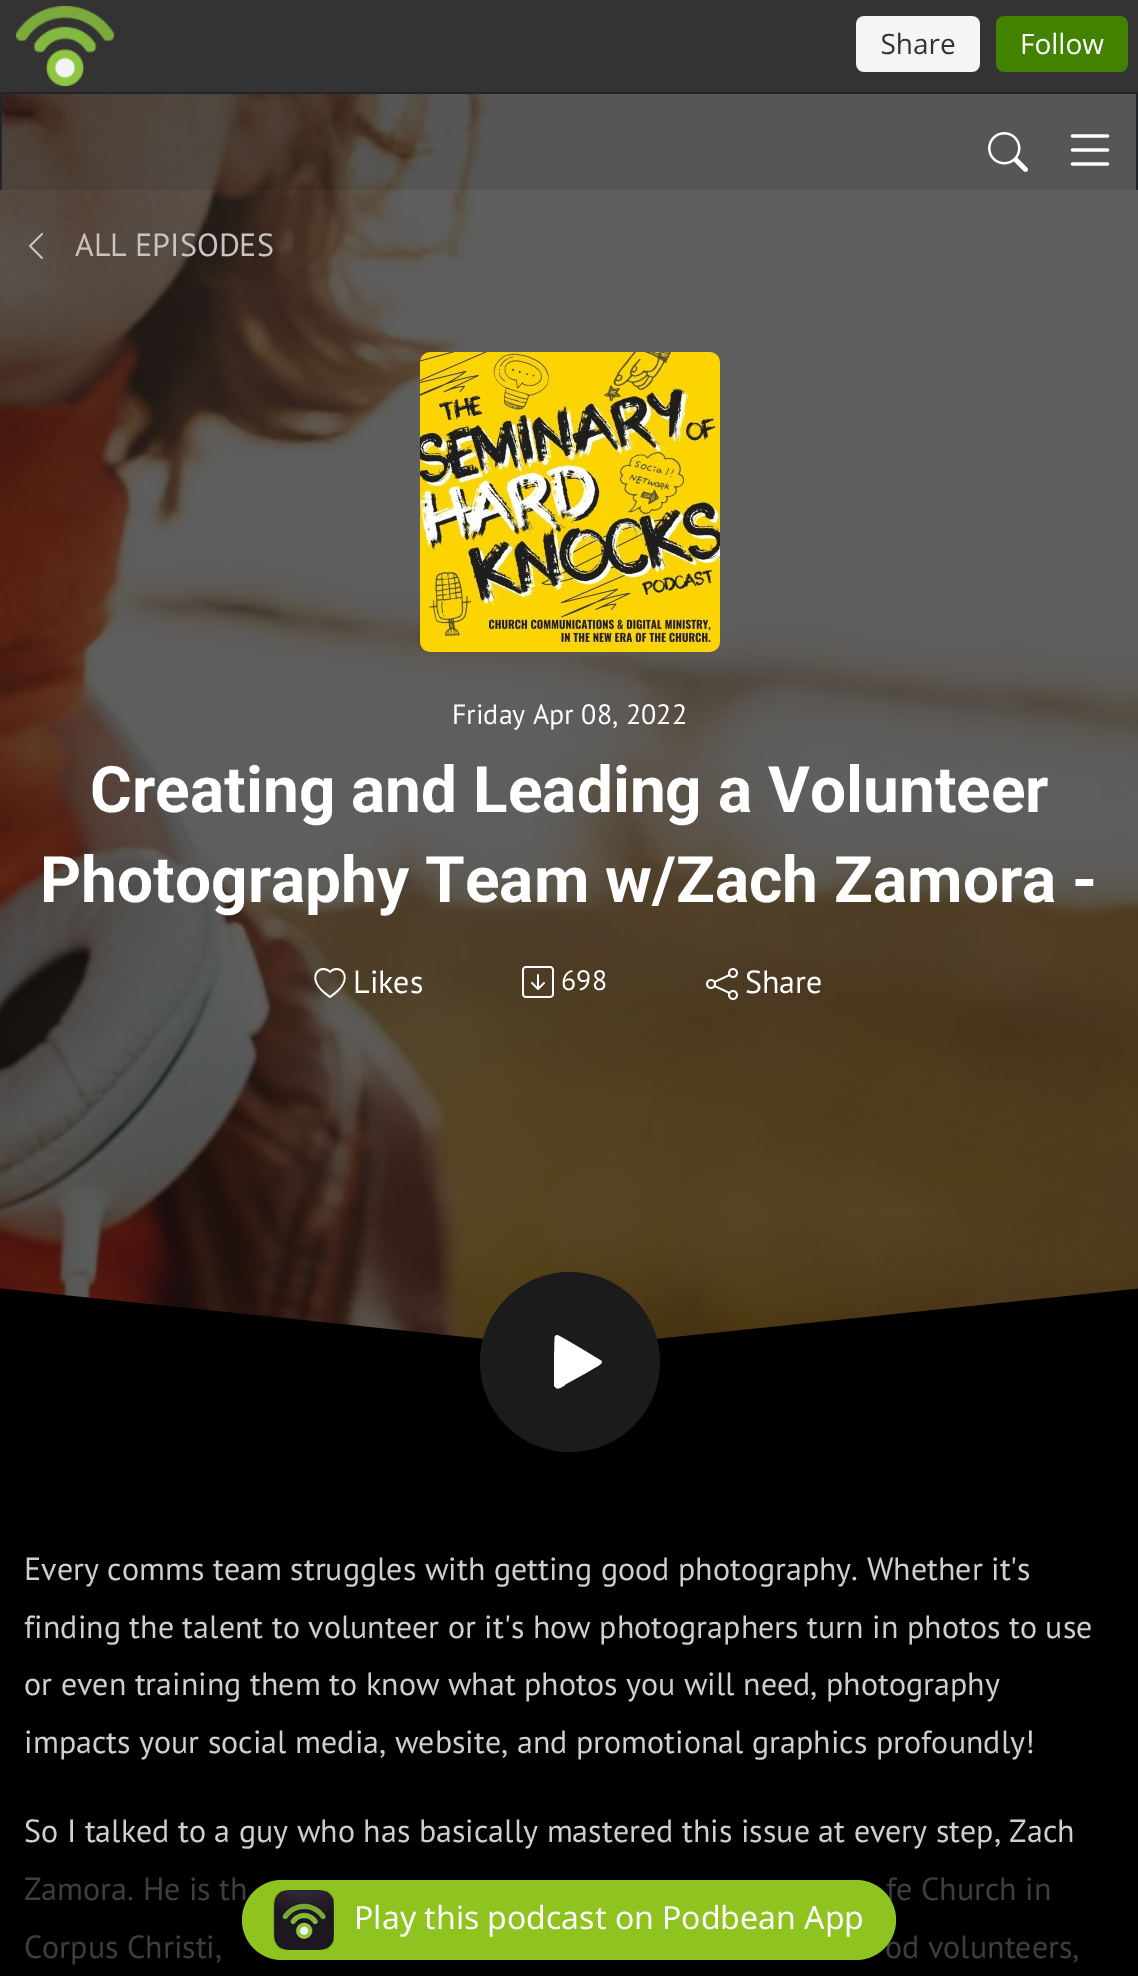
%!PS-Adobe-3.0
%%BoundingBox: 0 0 1138 1976
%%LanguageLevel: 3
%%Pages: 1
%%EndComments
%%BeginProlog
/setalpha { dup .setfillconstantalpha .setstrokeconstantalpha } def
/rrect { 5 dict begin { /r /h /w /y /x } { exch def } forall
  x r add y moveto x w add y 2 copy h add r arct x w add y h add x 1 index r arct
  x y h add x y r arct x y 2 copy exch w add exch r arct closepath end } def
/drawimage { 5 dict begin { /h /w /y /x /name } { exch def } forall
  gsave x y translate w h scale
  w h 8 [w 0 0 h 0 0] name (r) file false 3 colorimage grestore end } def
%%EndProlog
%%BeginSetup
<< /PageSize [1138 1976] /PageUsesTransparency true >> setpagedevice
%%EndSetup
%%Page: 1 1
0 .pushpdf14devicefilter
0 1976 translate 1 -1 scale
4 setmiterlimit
0 setgray
0 0 1138 1976 rectfill
0.2 setgray
0 0 1138 92 rectfill
(images/1.raw) 16 6 1112 80 drawimage
(images/4.raw) 0 94 1138 1245 drawimage
0.09 setalpha
0 setgray
2 94 1134 96 rectfill
1 setalpha
0.129 0.145 0.161 setrgbcolor
0 92 1138 2 rectfill
1136 92 2 98 rectfill
0 92 2 98 rectfill
(images/2.raw) 988 132 40 40 drawimage
(images/3.raw) 1070 134 40 32 drawimage
(images/5.raw) 29 233 14 26 drawimage
(images/6.raw) 420 352 300 300 drawimage
1 setgray
newpath 330 973 moveto 323 966 313 972 317 982 curveto 319 988 325 992 330 996 curveto 335 992 341 988 343 982 curveto 347 972 337 966 330 973 curveto closepath 330 998 moveto 300 978 321 961 330 971 curveto 339 961 360 978 330 998 curveto closepath fill
(images/7.raw) 522 966 32 32 drawimage
(images/8.raw) 706 968 32 32 drawimage
0 setgray
newpath 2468 1492 moveto -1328 1492 lineto -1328 1150 lineto 570 1348 lineto 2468 1150 lineto closepath fill
0.106 setgray
newpath 570 1362 90 0 360 arc closepath fill
1 setgray
newpath 600 1360 moveto 595 1357 559 1335 557 1335 curveto 555 1336 lineto 554 1338 554 1382 554 1386 curveto 556 1388 lineto 559 1390 565 1385 566 1384 curveto 586 1373 lineto 597 1366 606 1363 600 1360 curveto closepath fill
/PTSans-Regular [32 0 0 -32 0 0] selectfont
0.78 0.765 0.753 setrgbcolor
75 256 moveto (ALL EPISODES) show
/PTSans-Regular [28 0 0 -28 0 0] selectfont
1 setgray
452 724 moveto (Friday Apr 08, 2022) show
/Roboto-Bold [64 0 0 -64 0 0] selectfont
90 812 moveto (Creating and Leading a Volunteer) show
40 902 moveto (Photography Team w/Zach Zamora -) show
/PTSans-Regular [32 0 0 -32 0 0] selectfont
353 993 moveto (Likes) show
/PTSans-Regular [28 0 0 -28 0 0] selectfont
561 990 moveto (698) show
/PTSans-Regular [32 0 0 -32 0 0] selectfont
745 993 moveto (Share) show
0.812 setgray
24 1580 moveto (Every comms team struggles with getting good photography. Whether it's) show
24 1638 moveto (finding the talent to volunteer or it's how photographers turn in photos to use) show
24 1695 moveto (or even training them to know what photos you will need, photography) show
24 1753 moveto (impacts your social media, website, and promotional graphics profoundly!) show
24 1842 moveto (So I talked to a guy who has basically mastered this issue at every step, Zach) show
0.243 setgray
24 1900 moveto (Zamora. He is th) show
886 1900 moveto (fe Church in) show
24 1958 moveto (Corpus Christi,) show
885 1958 moveto (od volunteers,) show
0.561 0.765 0.122 setrgbcolor
242 1880 654 80 40 rrect fill
(images/9.raw) 273 1890 61 60 drawimage
/NotoSans-Regular [32 0 0 -32 0 0] selectfont
1 setgray
354 1929 moveto (Play this podcast on Podbean App) show
.poppdf14devicefilter showpage
%%EOF
